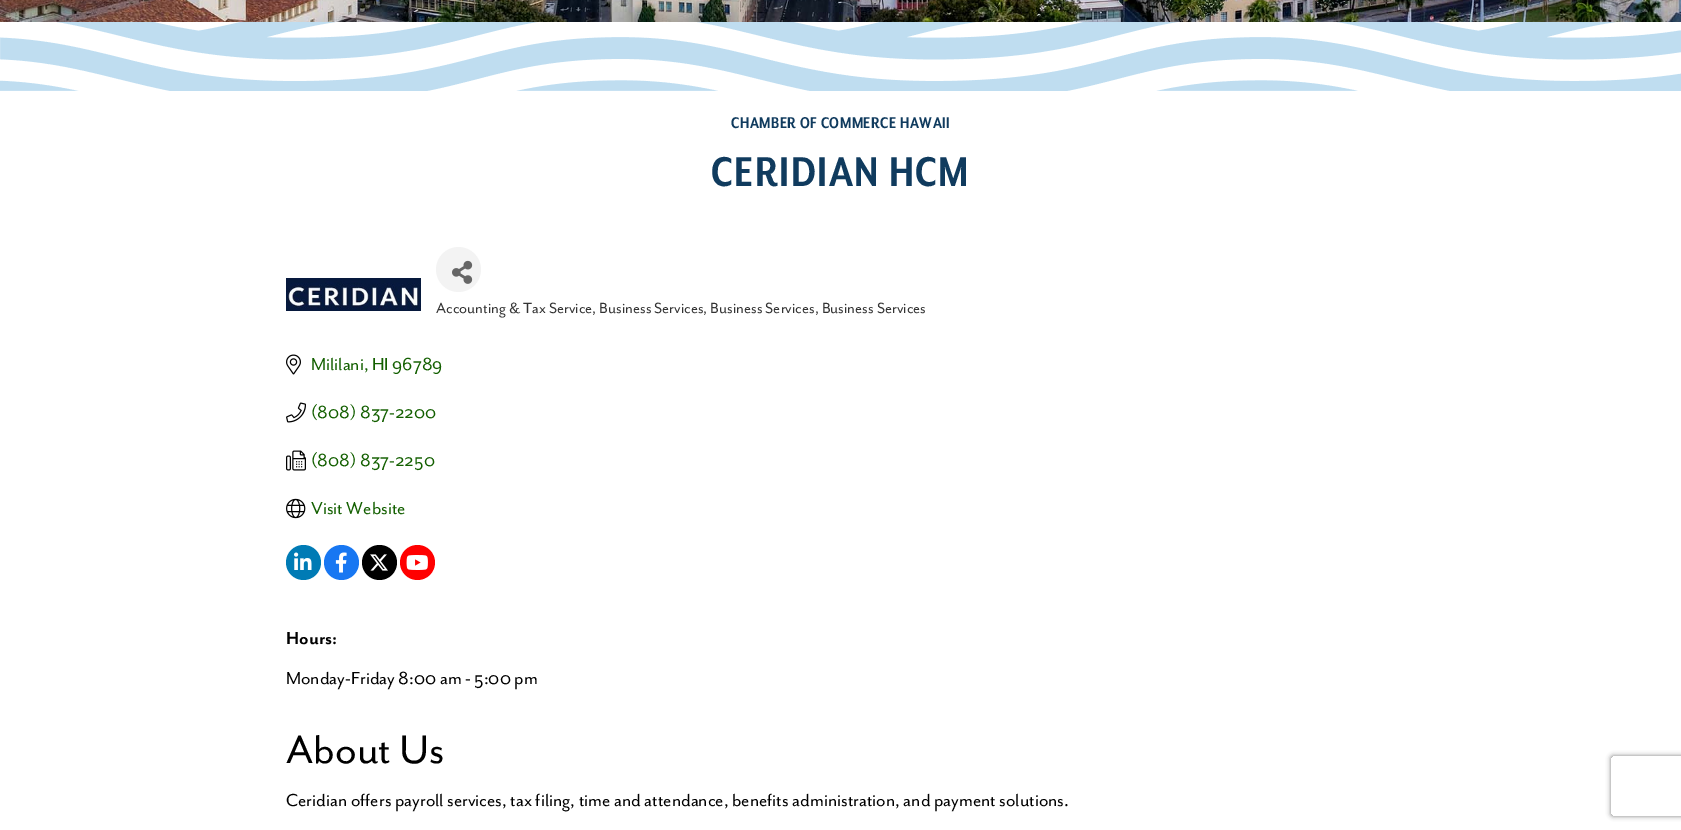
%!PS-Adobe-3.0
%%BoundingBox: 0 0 1681 830
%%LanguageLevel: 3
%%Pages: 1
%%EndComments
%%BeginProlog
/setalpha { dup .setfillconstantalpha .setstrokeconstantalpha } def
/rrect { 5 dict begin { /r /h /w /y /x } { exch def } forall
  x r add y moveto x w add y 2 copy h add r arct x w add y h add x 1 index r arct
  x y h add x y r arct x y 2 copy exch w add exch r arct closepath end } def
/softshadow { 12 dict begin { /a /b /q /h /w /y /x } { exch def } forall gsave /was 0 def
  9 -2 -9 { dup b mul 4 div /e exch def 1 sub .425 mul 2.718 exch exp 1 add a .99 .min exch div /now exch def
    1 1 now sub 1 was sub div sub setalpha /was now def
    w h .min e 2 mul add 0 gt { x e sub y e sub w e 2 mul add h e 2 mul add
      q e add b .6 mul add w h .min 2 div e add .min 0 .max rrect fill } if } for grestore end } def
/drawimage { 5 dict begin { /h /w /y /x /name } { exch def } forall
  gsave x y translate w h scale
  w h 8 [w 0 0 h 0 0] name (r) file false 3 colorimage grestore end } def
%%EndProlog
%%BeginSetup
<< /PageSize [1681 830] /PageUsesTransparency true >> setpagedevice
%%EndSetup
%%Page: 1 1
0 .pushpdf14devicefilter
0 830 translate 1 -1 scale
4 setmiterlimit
1 setgray
0 0 1681 830 rectfill
(images/1.raw) 0 0 1681 22 drawimage
(images/2.raw) 0 22 1681 69 drawimage
(images/3.raw) 286 278 135 33 drawimage
0.953 setgray
newpath 458.5 269.5 22.5 0 360 arc closepath fill
(images/4.raw) 452 260 21 24 drawimage
(images/5.raw) 286 354 15 21 drawimage
(images/6.raw) 286 402 20 21 drawimage
(images/7.raw) 286 450 20 21 drawimage
(images/8.raw) 286 498 20 21 drawimage
0 0.482 0.71 setrgbcolor
newpath 303.5 562.5 17.5 0 360 arc closepath fill
(images/9.raw) 294 552 18 18 drawimage
0.094 0.467 0.949 setrgbcolor
newpath 341.5 562.5 17.5 0 360 arc closepath fill
(images/10.raw) 335 552 12 21 drawimage
0 setgray
newpath 379.5 562.5 17.5 0 360 arc closepath fill
(images/11.raw) 370 554 18 17 drawimage
1 0 0 setrgbcolor
newpath 417.5 562.5 17.5 0 360 arc closepath fill
(images/12.raw) 406 555 22 15 drawimage
gsave
newpath 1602 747 moveto 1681 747 lineto 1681 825 lineto 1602 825 lineto closepath 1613 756 moveto 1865 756 lineto 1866 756 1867 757 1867 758 curveto 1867 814 lineto 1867 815 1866 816 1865 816 curveto 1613 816 lineto 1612 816 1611 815 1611 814 curveto 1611 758 lineto 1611 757 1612 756 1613 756 curveto closepath eoclip newpath
0.502 setgray
1611 756 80 60 2 2.5 1 softshadow
grestore
/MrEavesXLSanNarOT-Bold [18 0 0 -18 0 0] selectfont
0.063 0.231 0.369 setrgbcolor
731 128 moveto 0.55 0 (CHAMBER OF COMMERCE HAWAII) ashow
/MrEavesXLSanNarOT-Bold [48 0 0 -48 0 0] selectfont
711 186 moveto 1.5 0 (CERIDIAN HCM) ashow
/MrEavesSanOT-Regular [17 0 0 -17 0 0] selectfont
0.2 setgray
436 313 moveto (Accounting & Tax Service, Business Services, Business Services, Business Services) show
/MrEavesSanOT-Regular [20 0 0 -20 0 0] selectfont
0.075 0.373 0 setrgbcolor
311 370 moveto (Mililani, HI 96789) show
311 418 moveto (\(808\) 837-2200) show
311 466 moveto (\(808\) 837-2250) show
311 514 moveto (Visit Website) show
/MrEavesSanOT-Bold [20 0 0 -20 0 0] selectfont
0 setgray
286 644 moveto (Hours:) show
/MrEavesSanOT-Regular [20 0 0 -20 0 0] selectfont
286 684 moveto (Monday-Friday 8:00 am - 5:00 pm) show
/MrEavesSanOT-Regular [46 0 0 -46 0 0] selectfont
286 763 moveto (About Us) show
/MrEavesSanOT-Regular [20 0 0 -20 0 0] selectfont
286 806 moveto (Ceridian offers payroll services, tax filing, time and attendance, benefits administration, and payment solutions.) show
.poppdf14devicefilter showpage
%%EOF
